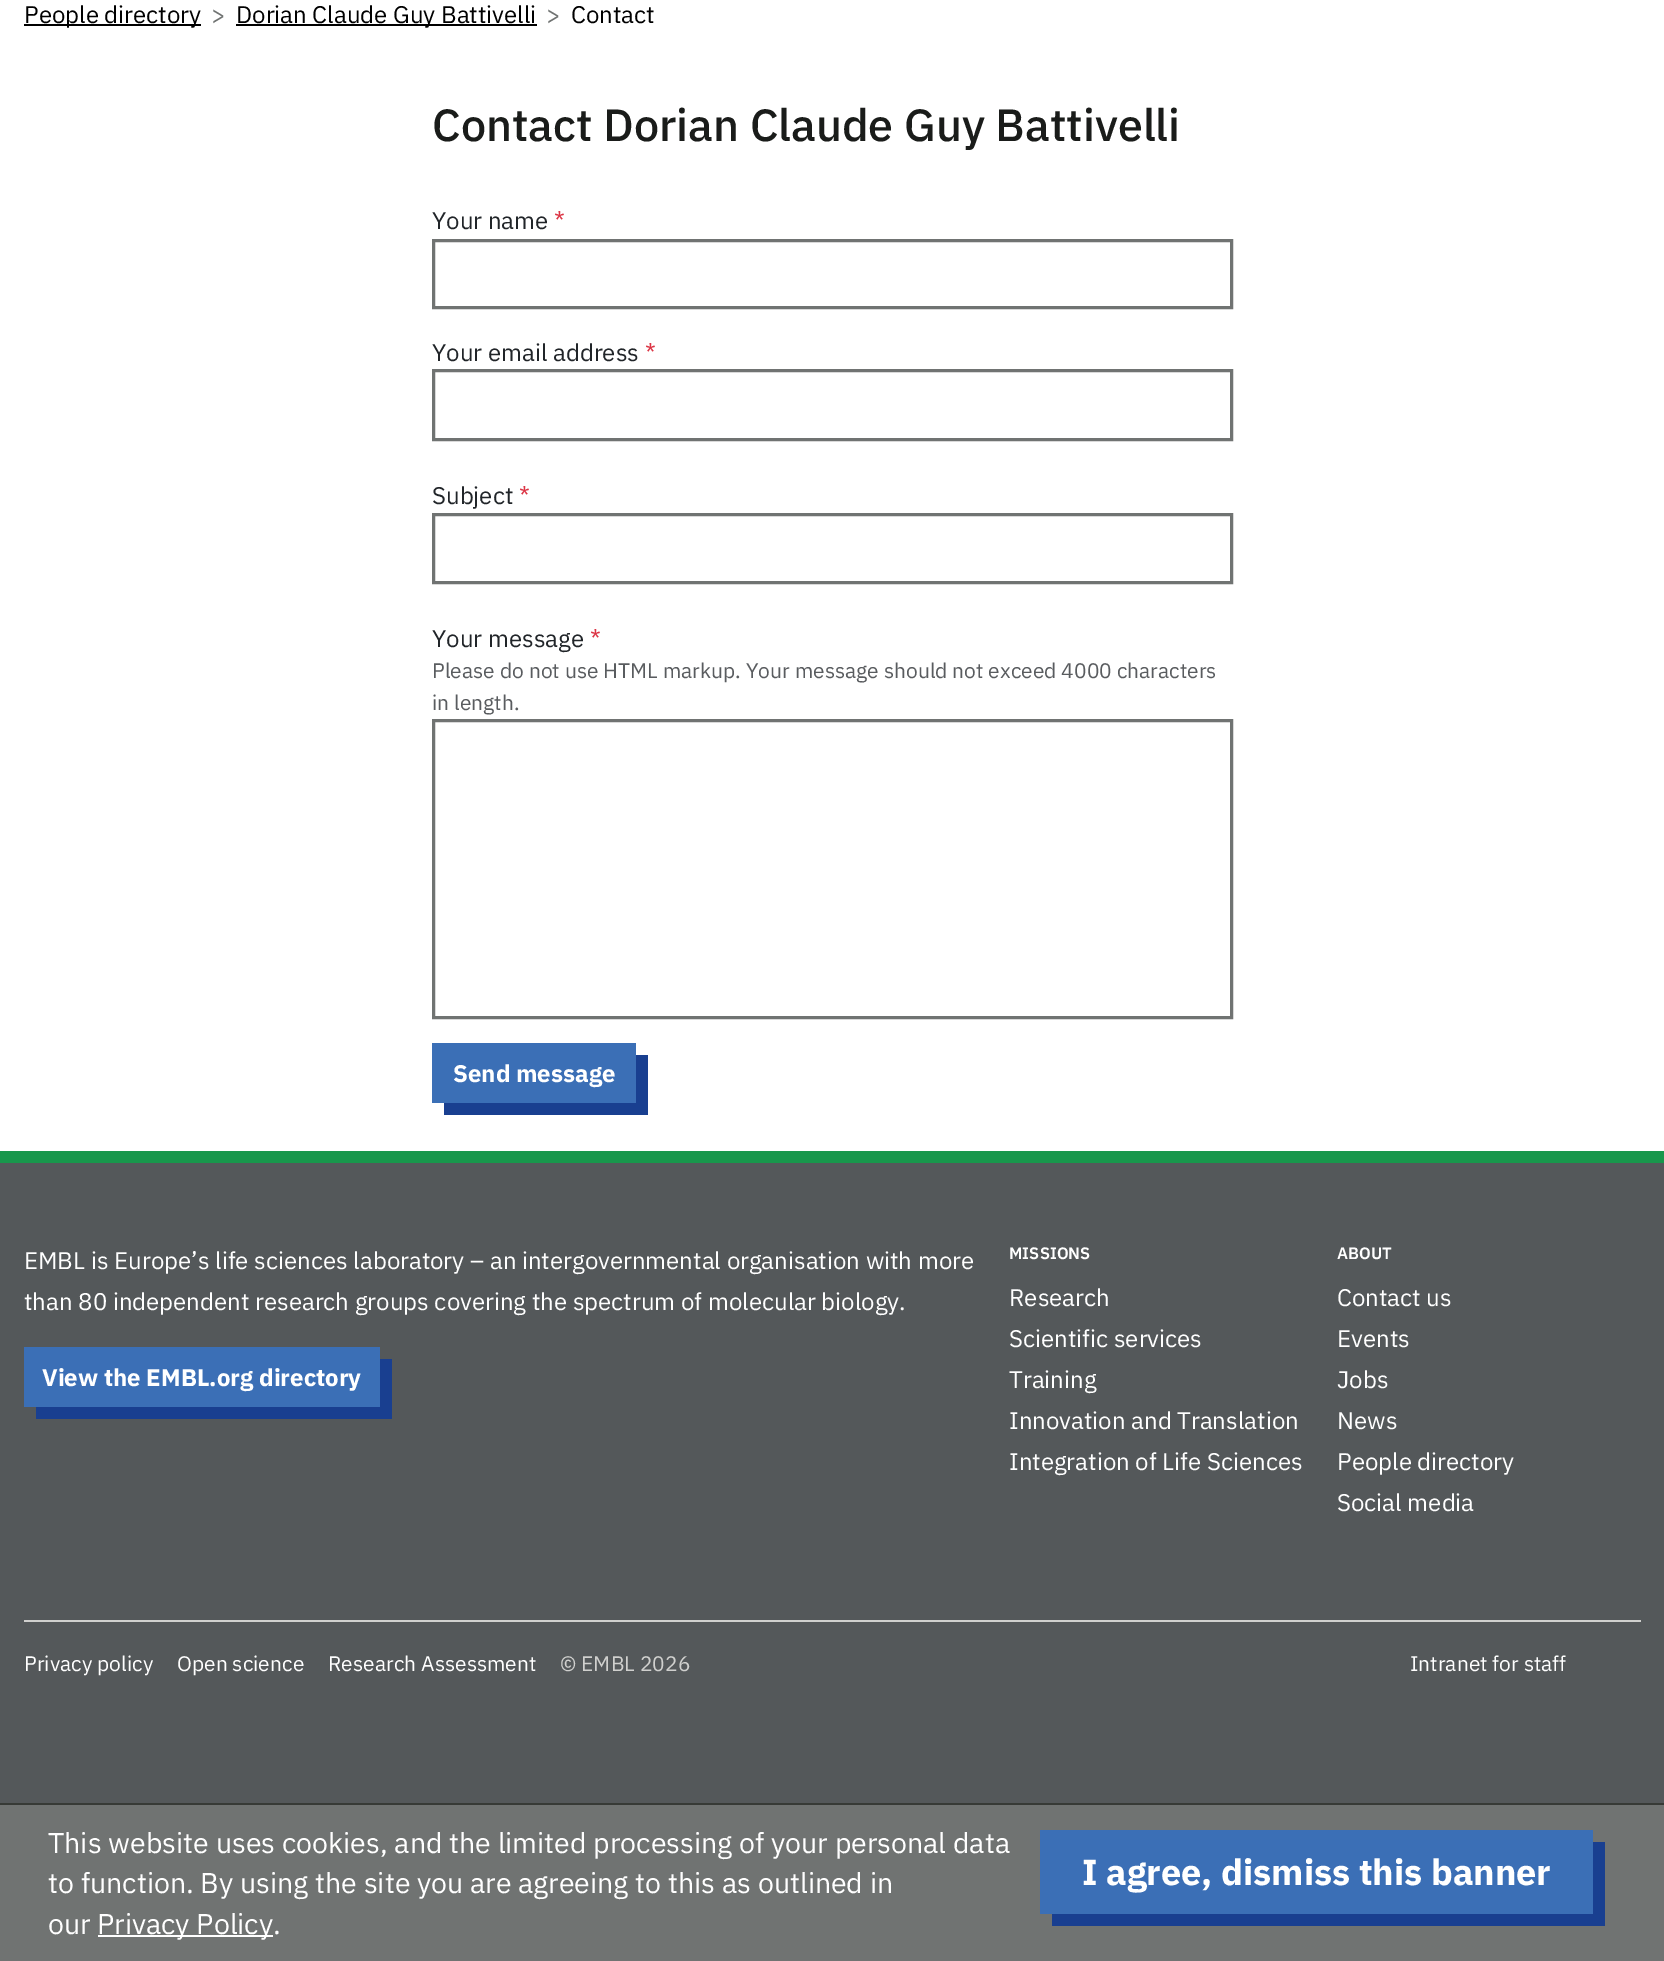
%!PS-Adobe-3.0
%%BoundingBox: 0 0 1664 1961
%%LanguageLevel: 3
%%Pages: 1
%%EndComments
%%BeginProlog
%%EndProlog
%%BeginSetup
<< /PageSize [1664 1961] >> setpagedevice
%%EndSetup
%%Page: 1 1
0 1961 translate 1 -1 scale
4 setmiterlimit
1 setgray
0 0 1664 1961 rectfill
0 setgray
24 24 177 2 rectfill
236 24 301 2 rectfill
0.439 0.451 0.447 setrgbcolor
3 setlinewidth
433.5 240.5 798 67 rectstroke
433.5 370.5 798 69 rectstroke
433.5 514.5 798 68 rectstroke
433.5 720.5 798 297 rectstroke
0.098 0.247 0.565 setrgbcolor
newpath 444 1102 moveto 444 1115 lineto 648 1115 lineto 648 1055 lineto 636 1055 lineto 636 1102 lineto closepath fill
0.231 0.435 0.714 setrgbcolor
432 1043 204 60 rectfill
0.094 0.592 0.298 setrgbcolor
0 1151 1664 12 rectfill
0.329 0.345 0.353 setrgbcolor
0 1163 1664 640 rectfill
0.816 0.816 0.808 setrgbcolor
24 1620 1617 2 rectfill
0.098 0.247 0.565 setrgbcolor
newpath 36 1407 moveto 36 1419 lineto 392 1419 lineto 392 1359 lineto 380 1359 lineto 380 1407 lineto closepath fill
0.231 0.435 0.714 setrgbcolor
24 1347 356 60 rectfill
0.439 0.451 0.447 setrgbcolor
0 1805 1664 156 rectfill
0.216 0.227 0.212 setrgbcolor
0 1803 1664 2 rectfill
1 setgray
98 1935 175 2 rectfill
0.098 0.247 0.565 setrgbcolor
newpath 1052 1914 moveto 1052 1926 lineto 1605 1926 lineto 1605 1842 lineto 1593 1842 lineto 1593 1914 lineto closepath fill
0.231 0.435 0.714 setrgbcolor
1040 1830 553 84 rectfill
/IBMPlexSans-Regular [24 0 0 -24 0 0] selectfont
0 setgray
24 23 moveto (People directory) show
0.439 0.451 0.447 setrgbcolor
211 23 moveto (>) show
0 setgray
236 23 moveto (Dorian Claude Guy Battivelli) show
0.439 0.451 0.447 setrgbcolor
546 23 moveto (>) show
0 setgray
571 23 moveto (Contact) show
/IBMPlexSans-Medium [45 0 0 -45 0 0] selectfont
0.102 0.11 0.102 setrgbcolor
432 141 moveto (Contact Dorian Claude Guy Battivelli) show
/IBMPlexSans-Regular [24 0 0 -24 0 0] selectfont
0.129 0.145 0.161 setrgbcolor
432 229 moveto (Your name) show
0.863 0.208 0.271 setrgbcolor
554 229 moveto (*) show
0.129 0.145 0.161 setrgbcolor
432 361 moveto (Your email address) show
0.863 0.208 0.271 setrgbcolor
645 361 moveto (*) show
0.129 0.145 0.161 setrgbcolor
432 504 moveto (Subject) show
0.863 0.208 0.271 setrgbcolor
519 504 moveto (*) show
0.129 0.145 0.161 setrgbcolor
432 647 moveto (Your message) show
0.863 0.208 0.271 setrgbcolor
590 647 moveto (*) show
/IBMPlexSans-Regular [21 0 0 -21 0 0] selectfont
0.349 0.361 0.373 setrgbcolor
432 678 moveto (Please do not use HTML markup. Your message should not exceed 4000 characters) show
432 710 moveto (in length.) show
/IBMPlexSans-Bold [24 0 0 -24 0 0] selectfont
1 setgray
453 1082 moveto (Send message) show
/IBMPlexSans-Regular [24 0 0 -24 0 0] selectfont
24 1269 moveto (EMBL is Europe’s life sciences laboratory – an intergovernmental organisation with more) show
24 1310 moveto (than 80 independent research groups covering the spectrum of molecular biology.) show
/IBMPlexSans-Bold [24 0 0 -24 0 0] selectfont
42 1386 moveto (View the EMBL.org directory) show
/IBMPlexSans-SemiBold [16.5 0 0 -16.5 0 0] selectfont
1009 1259 moveto (MISSIONS) show
/IBMPlexSans-Regular [24 0 0 -24 0 0] selectfont
1009 1306 moveto (Research) show
1009 1347 moveto (Scientific services) show
1009 1388 moveto (Training) show
1009 1429 moveto (Innovation and Translation) show
1009 1470 moveto (Integration of Life Sciences) show
/IBMPlexSans-SemiBold [16.5 0 0 -16.5 0 0] selectfont
1337 1259 moveto (ABOUT) show
/IBMPlexSans-Regular [24 0 0 -24 0 0] selectfont
1337 1306 moveto (Contact us) show
1337 1347 moveto (Events) show
1337 1388 moveto (Jobs) show
1337 1429 moveto (News) show
1337 1470 moveto (People directory) show
1337 1511 moveto (Social media) show
/IBMPlexSans-Regular [21 0 0 -21 0 0] selectfont
24 1671 moveto (Privacy policy) show
177 1671 moveto (Open science) show
328 1671 moveto (Research Assessment) show
0.816 0.816 0.808 setrgbcolor
560 1671 moveto (© EMBL 2026) show
1 setgray
1410 1671 moveto (Intranet for staff) show
/IBMPlexSans-Regular [28.5 0 0 -28.5 0 0] selectfont
48 1853 moveto (This website uses cookies, and the limited processing of your personal data) show
48 1893 moveto (to function. By using the site you are agreeing to this as outlined in) show
48 1934 moveto (our) show
97 1934 moveto (Privacy Policy.) show
/IBMPlexSans-Bold [36 0 0 -36 0 0] selectfont
1082 1885 moveto (I agree, dismiss this banner) show
showpage
%%EOF
